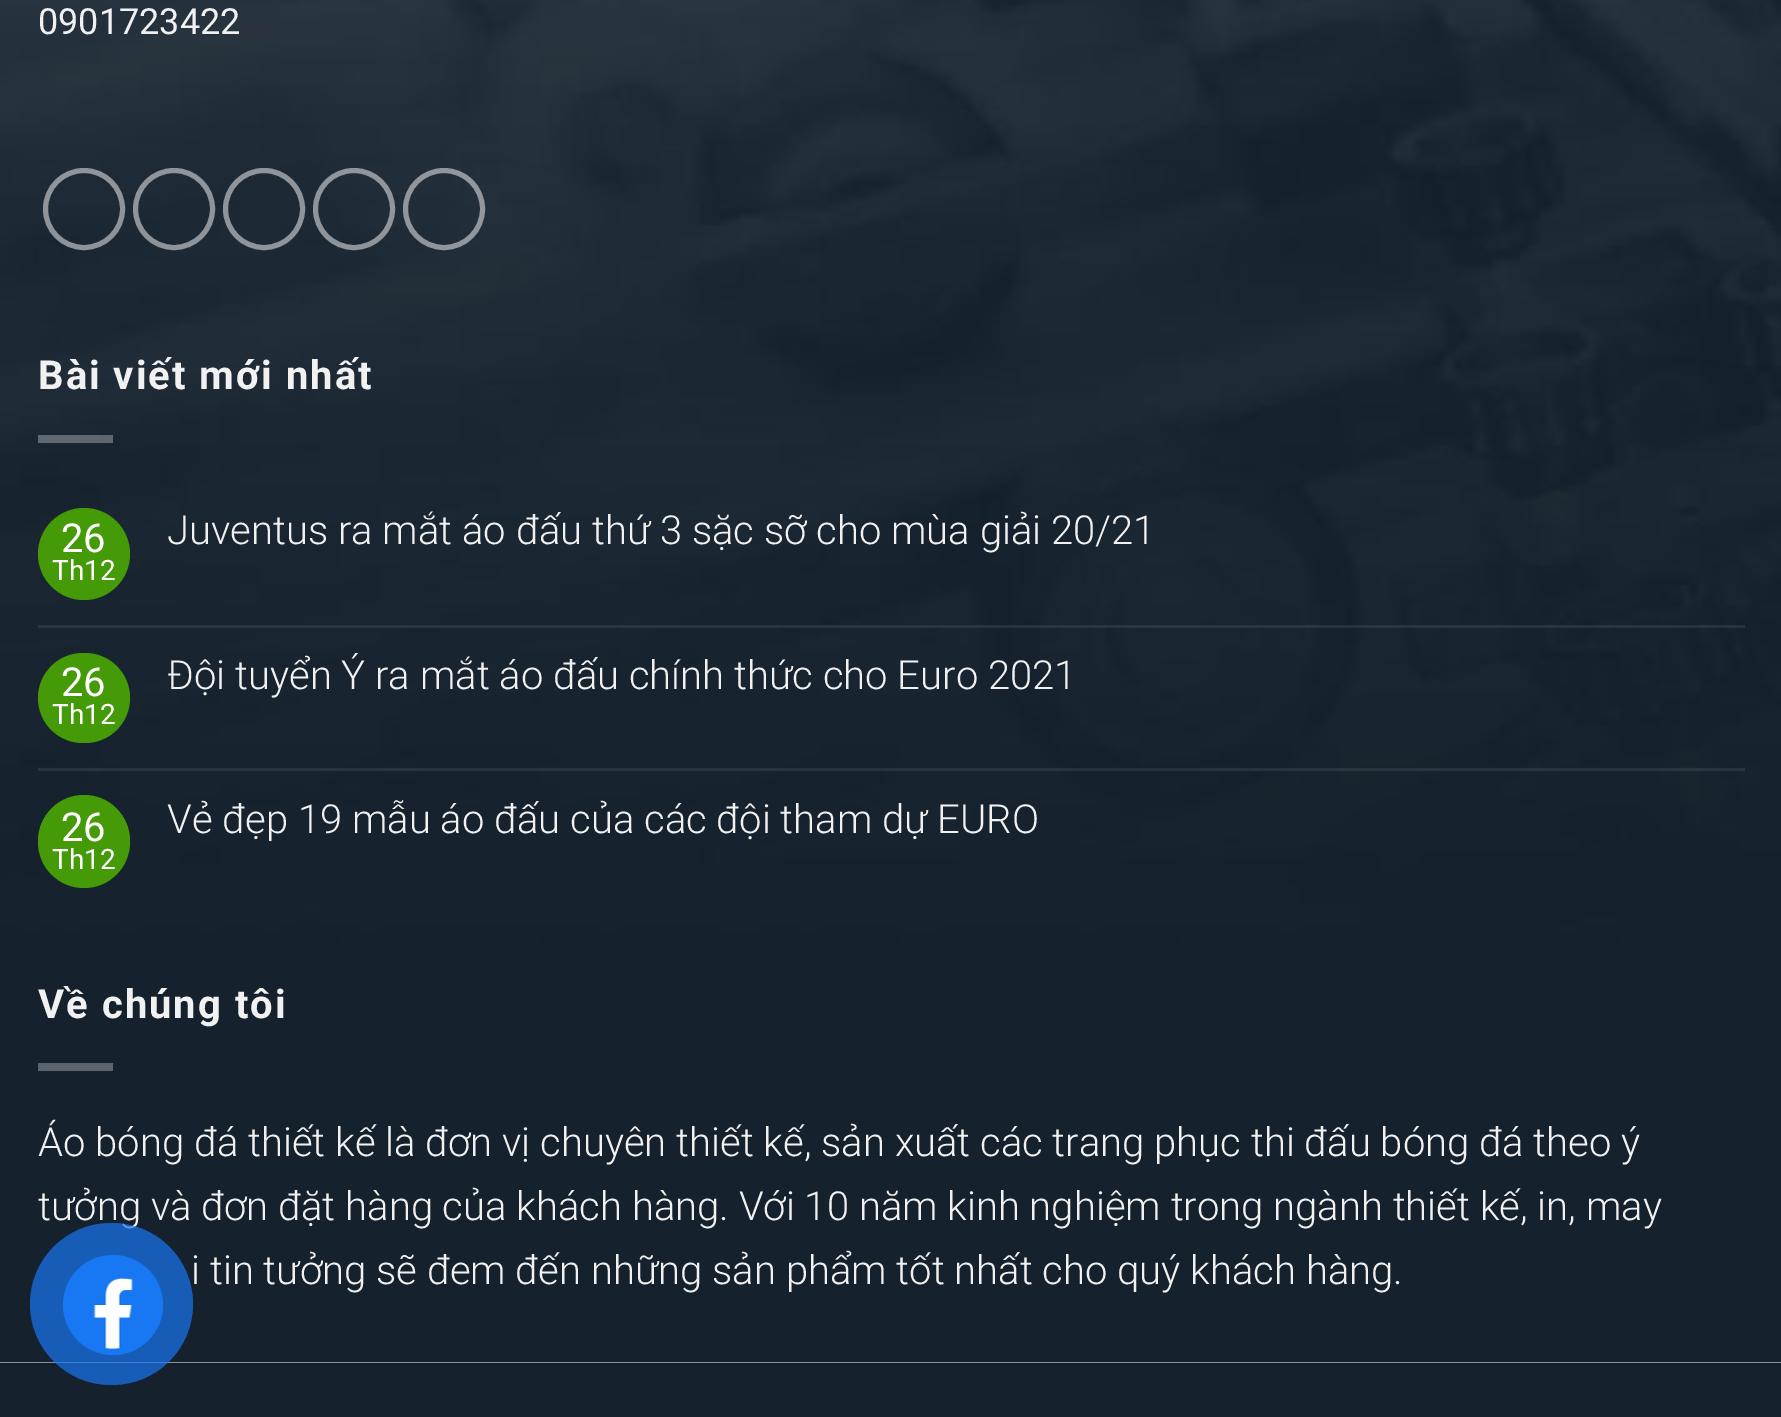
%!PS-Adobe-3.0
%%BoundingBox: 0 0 1781 1417
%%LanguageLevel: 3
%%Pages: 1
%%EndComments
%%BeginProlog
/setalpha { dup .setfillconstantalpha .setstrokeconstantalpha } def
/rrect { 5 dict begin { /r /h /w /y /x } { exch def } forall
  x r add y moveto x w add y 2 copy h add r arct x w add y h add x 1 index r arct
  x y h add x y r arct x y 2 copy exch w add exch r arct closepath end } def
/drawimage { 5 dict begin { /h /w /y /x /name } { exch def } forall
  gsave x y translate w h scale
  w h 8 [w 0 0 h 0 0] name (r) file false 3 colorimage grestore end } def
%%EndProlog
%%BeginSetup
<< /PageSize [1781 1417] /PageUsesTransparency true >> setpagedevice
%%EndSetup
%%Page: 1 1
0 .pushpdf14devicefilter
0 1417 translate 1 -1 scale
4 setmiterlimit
1 setgray
0 0 1781 1417 rectfill
(images/1.raw) 0 0 1781 1363 drawimage
0.5 setalpha
5 setlinewidth
newpath 84 209 38.5 0 360 arc closepath stroke
newpath 174 209 38.5 0 360 arc closepath stroke
newpath 264 209 38.5 0 360 arc closepath stroke
newpath 354 209 38.5 0 360 arc closepath stroke
newpath 444 209 38.5 0 360 arc closepath stroke
0.3 setalpha
38 435 75 8 rectfill
1 setalpha
0.271 0.604 0.031 setrgbcolor
newpath 84 554 46 0 360 arc closepath fill
0.08 setalpha
1 setgray
38 625 1707 3 rectfill
1 setalpha
0.271 0.604 0.031 setrgbcolor
38 653 92 90 45 rrect fill
0.08 setalpha
1 setgray
38 768 1707 3 rectfill
1 setalpha
0.271 0.604 0.031 setrgbcolor
38 795 92 93 46 rrect fill
0.357 0.392 0.424 setrgbcolor
38 1063 75 8 rectfill
0.082 0.129 0.176 setrgbcolor
0 1366 1781 51 rectfill
0.078 0.122 0.169 setrgbcolor
0 1363 1781 3 rectfill
/Roboto-Regular [36 0 0 -36 0 0] selectfont
0.945 setgray
38 34 moveto (0901723422) show
/Roboto-Bold [40 0 0 -40 0 0] selectfont
38 389 moveto 2 0 (Bài viết mới nhất) ashow
/Roboto-Regular [40 0 0 -40 0 0] selectfont
1 setgray
61 552 moveto (26) show
/Roboto-Regular [28 0 0 -28 0 0] selectfont
52 580 moveto (Th12) show
/Roboto-Light [40 0 0 -40 0 0] selectfont
0.945 setgray
167 544 moveto (Juventus ra mắt áo đấu thứ 3 sặc sỡ cho mùa giải 20/21) show
/Roboto-Regular [40 0 0 -40 0 0] selectfont
1 setgray
61 696 moveto (26) show
/Roboto-Regular [28 0 0 -28 0 0] selectfont
52 724 moveto (Th12) show
/Roboto-Light [40 0 0 -40 0 0] selectfont
0.945 setgray
167 689 moveto (Đội tuyển Ý ra mắt áo đấu chính thức cho Euro 2021) show
/Roboto-Regular [40 0 0 -40 0 0] selectfont
1 setgray
61 841 moveto (26) show
/Roboto-Regular [28 0 0 -28 0 0] selectfont
52 869 moveto (Th12) show
/Roboto-Light [40 0 0 -40 0 0] selectfont
0.945 setgray
167 833 moveto (Vẻ đẹp 19 mẫu áo đấu của các đội tham dự EURO) show
/Roboto-Bold [40 0 0 -40 0 0] selectfont
38 1018 moveto 2 0 (Về chúng tôi) ashow
/Roboto-Light [40 0 0 -40 0 0] selectfont
38 1156 moveto (Áo bóng đá thiết kế là đơn vị chuyên thiết kế, sản xuất các trang phục thi đấu bóng đá theo ý) show
38 1220 moveto (tưởng và đơn đặt hàng của khách hàng. Với 10 năm kinh nghiệm trong ngành thiết kế, in, may) show
191 1284 moveto (i tin tưởng sẽ đem đến những sản phẩm tốt nhất cho quý khách hàng.) show
0.7 setalpha
0.094 0.467 0.949 setrgbcolor
30 1223 163 162 81 rrect fill
1 setalpha
newpath 113 1305 50 0 360 arc closepath fill
(images/2.raw) 93 1278 40 71 drawimage
.poppdf14devicefilter showpage
%%EOF
